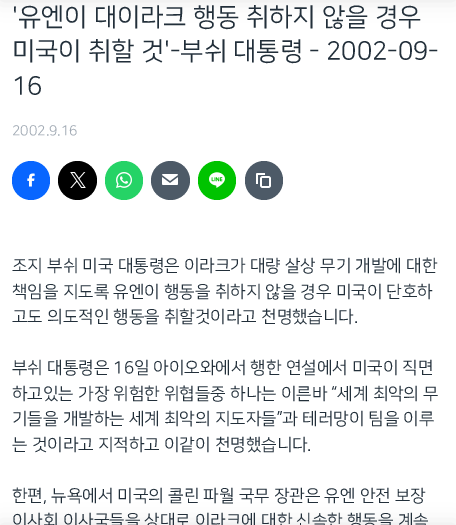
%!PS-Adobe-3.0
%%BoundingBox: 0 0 456 525
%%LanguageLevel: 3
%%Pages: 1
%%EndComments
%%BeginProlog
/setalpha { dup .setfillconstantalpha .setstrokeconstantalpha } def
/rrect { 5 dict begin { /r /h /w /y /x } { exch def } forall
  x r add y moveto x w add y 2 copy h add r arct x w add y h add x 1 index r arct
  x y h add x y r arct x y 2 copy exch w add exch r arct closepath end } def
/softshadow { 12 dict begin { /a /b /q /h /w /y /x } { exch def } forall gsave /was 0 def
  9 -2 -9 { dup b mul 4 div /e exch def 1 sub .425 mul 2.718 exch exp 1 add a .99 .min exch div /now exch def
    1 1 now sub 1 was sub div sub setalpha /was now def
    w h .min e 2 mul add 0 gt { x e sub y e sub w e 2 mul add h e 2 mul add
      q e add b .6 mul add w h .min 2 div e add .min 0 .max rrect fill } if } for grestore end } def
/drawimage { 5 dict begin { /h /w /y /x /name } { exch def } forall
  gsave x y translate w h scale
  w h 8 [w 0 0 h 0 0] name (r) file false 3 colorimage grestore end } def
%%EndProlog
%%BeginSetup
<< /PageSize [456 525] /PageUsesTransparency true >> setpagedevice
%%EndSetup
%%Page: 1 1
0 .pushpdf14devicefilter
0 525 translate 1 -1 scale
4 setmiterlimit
1 setgray
0 0 456 525 rectfill
0 setgray
0 -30 456 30 0 10 0.1 softshadow
0 525 456 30 0 10 0.1 softshadow
0.031 0.4 1 setrgbcolor
12 161 38 39 19 rrect fill
(images/1.raw) 27 173 8 14 drawimage
0 setgray
newpath 77.5 180.5 19.5 0 360 arc closepath fill
(images/2.raw) 70 172 16 16 drawimage
0.145 0.827 0.4 setrgbcolor
105 161 38 39 19 rrect fill
(images/3.raw) 116 172 16 16 drawimage
0.302 0.353 0.404 setrgbcolor
newpath 170.5 180.5 19.5 0 360 arc closepath fill
(images/4.raw) 162 174 16 11 drawimage
0 0.765 0 setrgbcolor
198 161 38 39 19 rrect fill
(images/5.raw) 209 172 16 16 drawimage
0.302 0.353 0.404 setrgbcolor
245 161 38 39 19 rrect fill
(images/6.raw) 256 173 15 15 drawimage
/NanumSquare-Regular [25.5 0 0 -25.5 0 0] selectfont
0.133 0.184 0.227 setrgbcolor
12 25 moveto ('유엔이 대이라크 행동 취하지 않을 경우) show
12 59 moveto (미국이 취할 것'-부쉬 대통령 - 2002-09-) show
12 94 moveto (16) show
/NanumSquare-Regular [14 0 0 -14 0 0] selectfont
0.631 0.667 0.706 setrgbcolor
12 135 moveto (2002.9.16) show
/NanumSquare-Regular [17 0 0 -17 0 0] selectfont
0.133 0.184 0.227 setrgbcolor
12 271 moveto (조지 부쉬 미국 대통령은 이라크가 대량 살상 무기 개발에 대한) show
12 297 moveto (책임을 지도록 유엔이 행동을 취하지 않을 경우 미국이 단호하) show
12 322 moveto (고도 의도적인 행동을 취할것이라고 천명했습니다.) show
12 373 moveto (부쉬 대통령은 16일 아이오와에서 행한 연설에서 미국이 직면) show
12 399 moveto (하고있는 가장 위험한 위협들중 하나는 이른바 “세계 최악의 무) show
12 424 moveto (기들을 개발하는 세계 최악의 지도자들”과 테러망이 팀을 이루) show
12 450 moveto (는 것이라고 지적하고 이같이 천명했습니다.) show
12 501 moveto (한편, 뉴욕에서 미국의 콜린 파월 국무 장관은 유엔 안전 보장) show
12 526 moveto (이사회 이사국들을 상대로 이라크에 대한 신속한 행동을 계속) show
.poppdf14devicefilter showpage
%%EOF
